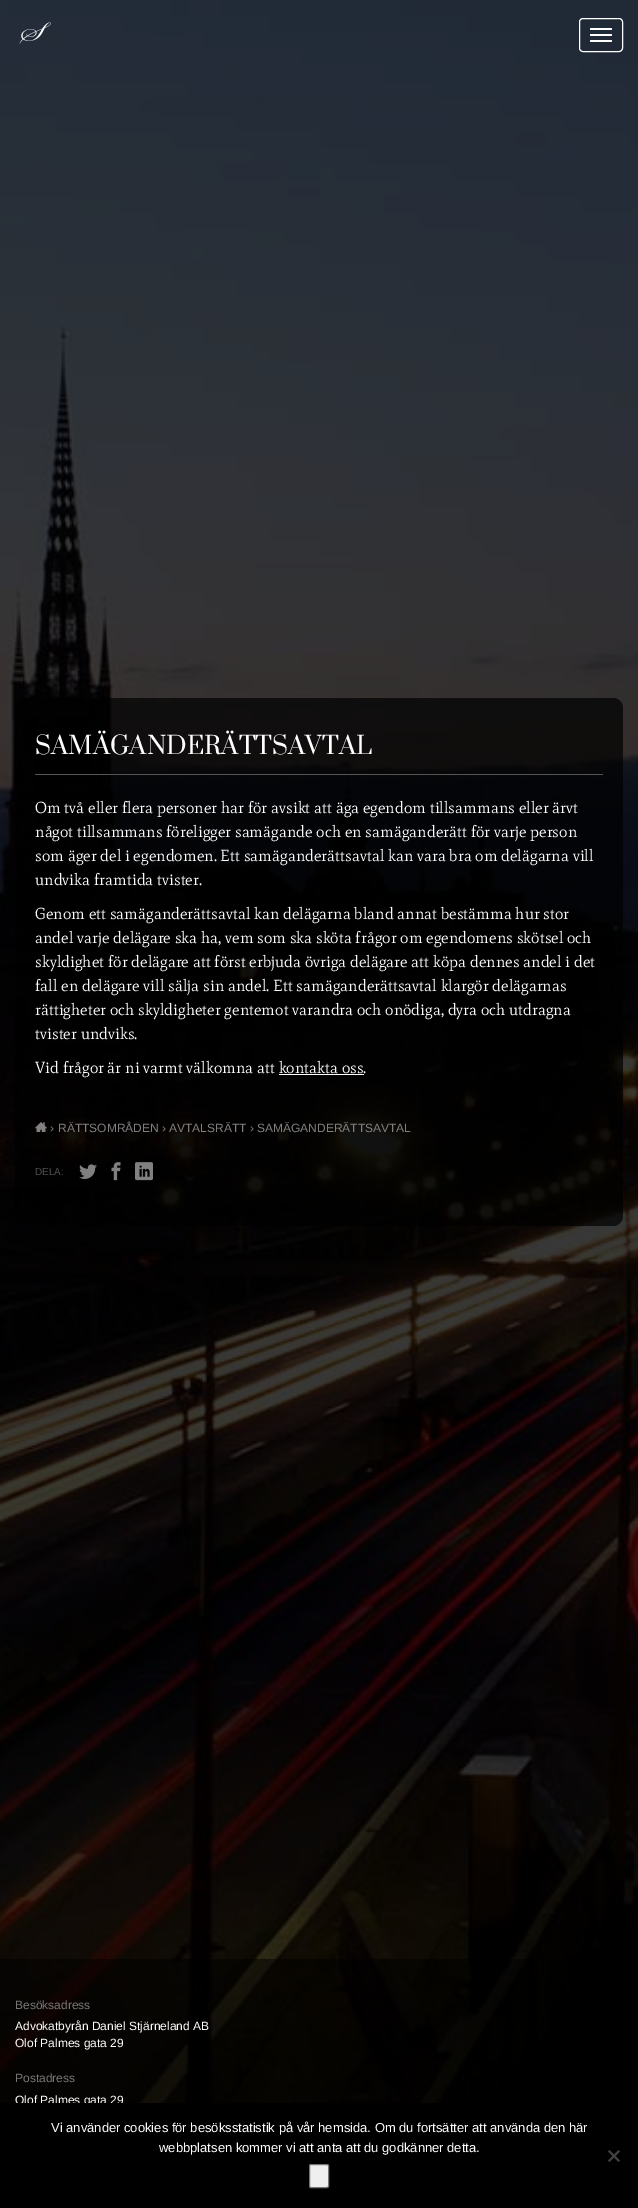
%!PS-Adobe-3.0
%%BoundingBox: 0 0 638 2208
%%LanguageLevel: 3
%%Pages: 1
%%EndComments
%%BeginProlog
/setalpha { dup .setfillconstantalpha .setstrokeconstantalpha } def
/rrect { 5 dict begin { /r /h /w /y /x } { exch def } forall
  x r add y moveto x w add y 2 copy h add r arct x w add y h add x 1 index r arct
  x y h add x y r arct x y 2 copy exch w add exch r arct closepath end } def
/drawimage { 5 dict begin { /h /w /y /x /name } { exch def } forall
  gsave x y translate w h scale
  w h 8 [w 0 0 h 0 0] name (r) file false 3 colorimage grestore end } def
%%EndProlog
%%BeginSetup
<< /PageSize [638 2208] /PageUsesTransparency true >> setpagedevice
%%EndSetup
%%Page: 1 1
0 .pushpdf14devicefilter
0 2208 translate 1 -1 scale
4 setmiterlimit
0 setgray
0 0 638 2208 rectfill
(images/1.raw) 0 0 638 2103 drawimage
(images/2.raw) 19 22 32 22 drawimage
1 setgray
579.5 18.5 43 33 3.5 rrect stroke
590 28 22 2 1 rrect fill
590 34 22 2 1 rrect fill
590 40 22 2 1 rrect fill
0.7 setalpha
0 setgray
15 698 608 528 10 rrect fill
1 setalpha
0.333 setgray
35 774 568 1 rectfill
1 setgray
279 1074 85 1 rectfill
(images/3.raw) 35 1122 12 10 drawimage
(images/4.raw) 79 1164 18 15 drawimage
(images/5.raw) 111 1162 10 19 drawimage
(images/6.raw) 135 1162 18 19 drawimage
0.5 setalpha
0 setgray
0 1959 539 144 rectfill
1 setalpha
0.251 setgray
newpath 618.5 2150 moveto 620 2151.5 lineto 609.5 2162 lineto 608 2160.5 lineto closepath fill
newpath 608 2151.5 moveto 609.5 2150 lineto 620 2160.5 lineto 618.5 2162 lineto closepath fill
0.937 setgray
309.5 2164.5 19 23 1.5 rrect gsave fill grestore
0.463 setgray
stroke
/Prata-Regular [24 0 0 -24 0 0] selectfont
1 setgray
35 754 moveto (SAMÄGANDERÄTTSAVTAL) show
/Mate-Regular [16 0 0 -16 0 0] selectfont
35 813 moveto (Om två eller flera personer har för avsikt att äga egendom tillsammans eller ärvt) show
35 837 moveto (något tillsammans föreligger samägande och en samäganderätt för varje person) show
35 861 moveto (som äger del i egendomen. Ett samäganderättsavtal kan vara bra om delägarna vill) show
35 885 moveto (undvika framtida tvister.) show
35 919 moveto (Genom ett samäganderättsavtal kan delägarna bland annat bestämma hur stor) show
35 943 moveto (andel varje delägare ska ha, vem som ska sköta frågor om egendomens skötsel och) show
35 967 moveto (skyldighet för delägare att först erbjuda övriga delägare att köpa dennes andel i det) show
35 991 moveto (fall en delägare vill sälja sin andel. Ett samäganderättsavtal klargör delägarnas) show
35 1015 moveto (rättigheter och skyldigheter gentemot varandra och onödiga, dyra och utdragna) show
35 1039 moveto (tvister undviks.) show
35 1073 moveto (Vid frågor är ni varmt välkomna att kontakta oss.) show
/LiberationSans-Regular [12 0 0 -12 0 0] selectfont
0.506 0.502 0.502 setrgbcolor
50 1132 moveto (›) show
58 1132 moveto (RÄTTSOMRÅDEN) show
162 1132 moveto (›) show
169 1132 moveto (AVTALSRÄTT) show
250 1132 moveto (›) show
257 1132 moveto (SAMÄGANDERÄTTSAVTAL) show
/LiberationSans-Regular [10 0 0 -10 0 0] selectfont
0.306 0.302 0.302 setrgbcolor
35 1175 moveto (DELA:) show
/LiberationSans-Regular [12 0 0 -12 0 0] selectfont
0.467 setgray
15 2009 moveto (Besöksadress) show
1 setgray
15 2030 moveto (Advokatbyrån Daniel Stjärneland AB) show
15 2047 moveto (Olof Palmes gata 29) show
0.467 setgray
15 2082 moveto (Postadress) show
1 setgray
15 2104 moveto (Olof Palmes gata 29) show
0 setgray
16 2103 107 4 rectfill
/LiberationSans-Regular [13 0 0 -13 0 0] selectfont
1 setgray
51 2132 moveto (Vi använder cookies för besöksstatistik på vår hemsida. Om du fortsätter att använda den här) show
159 2152 moveto (webbplatsen kommer vi att anta att du godkänner detta.) show
.poppdf14devicefilter showpage
%%EOF
